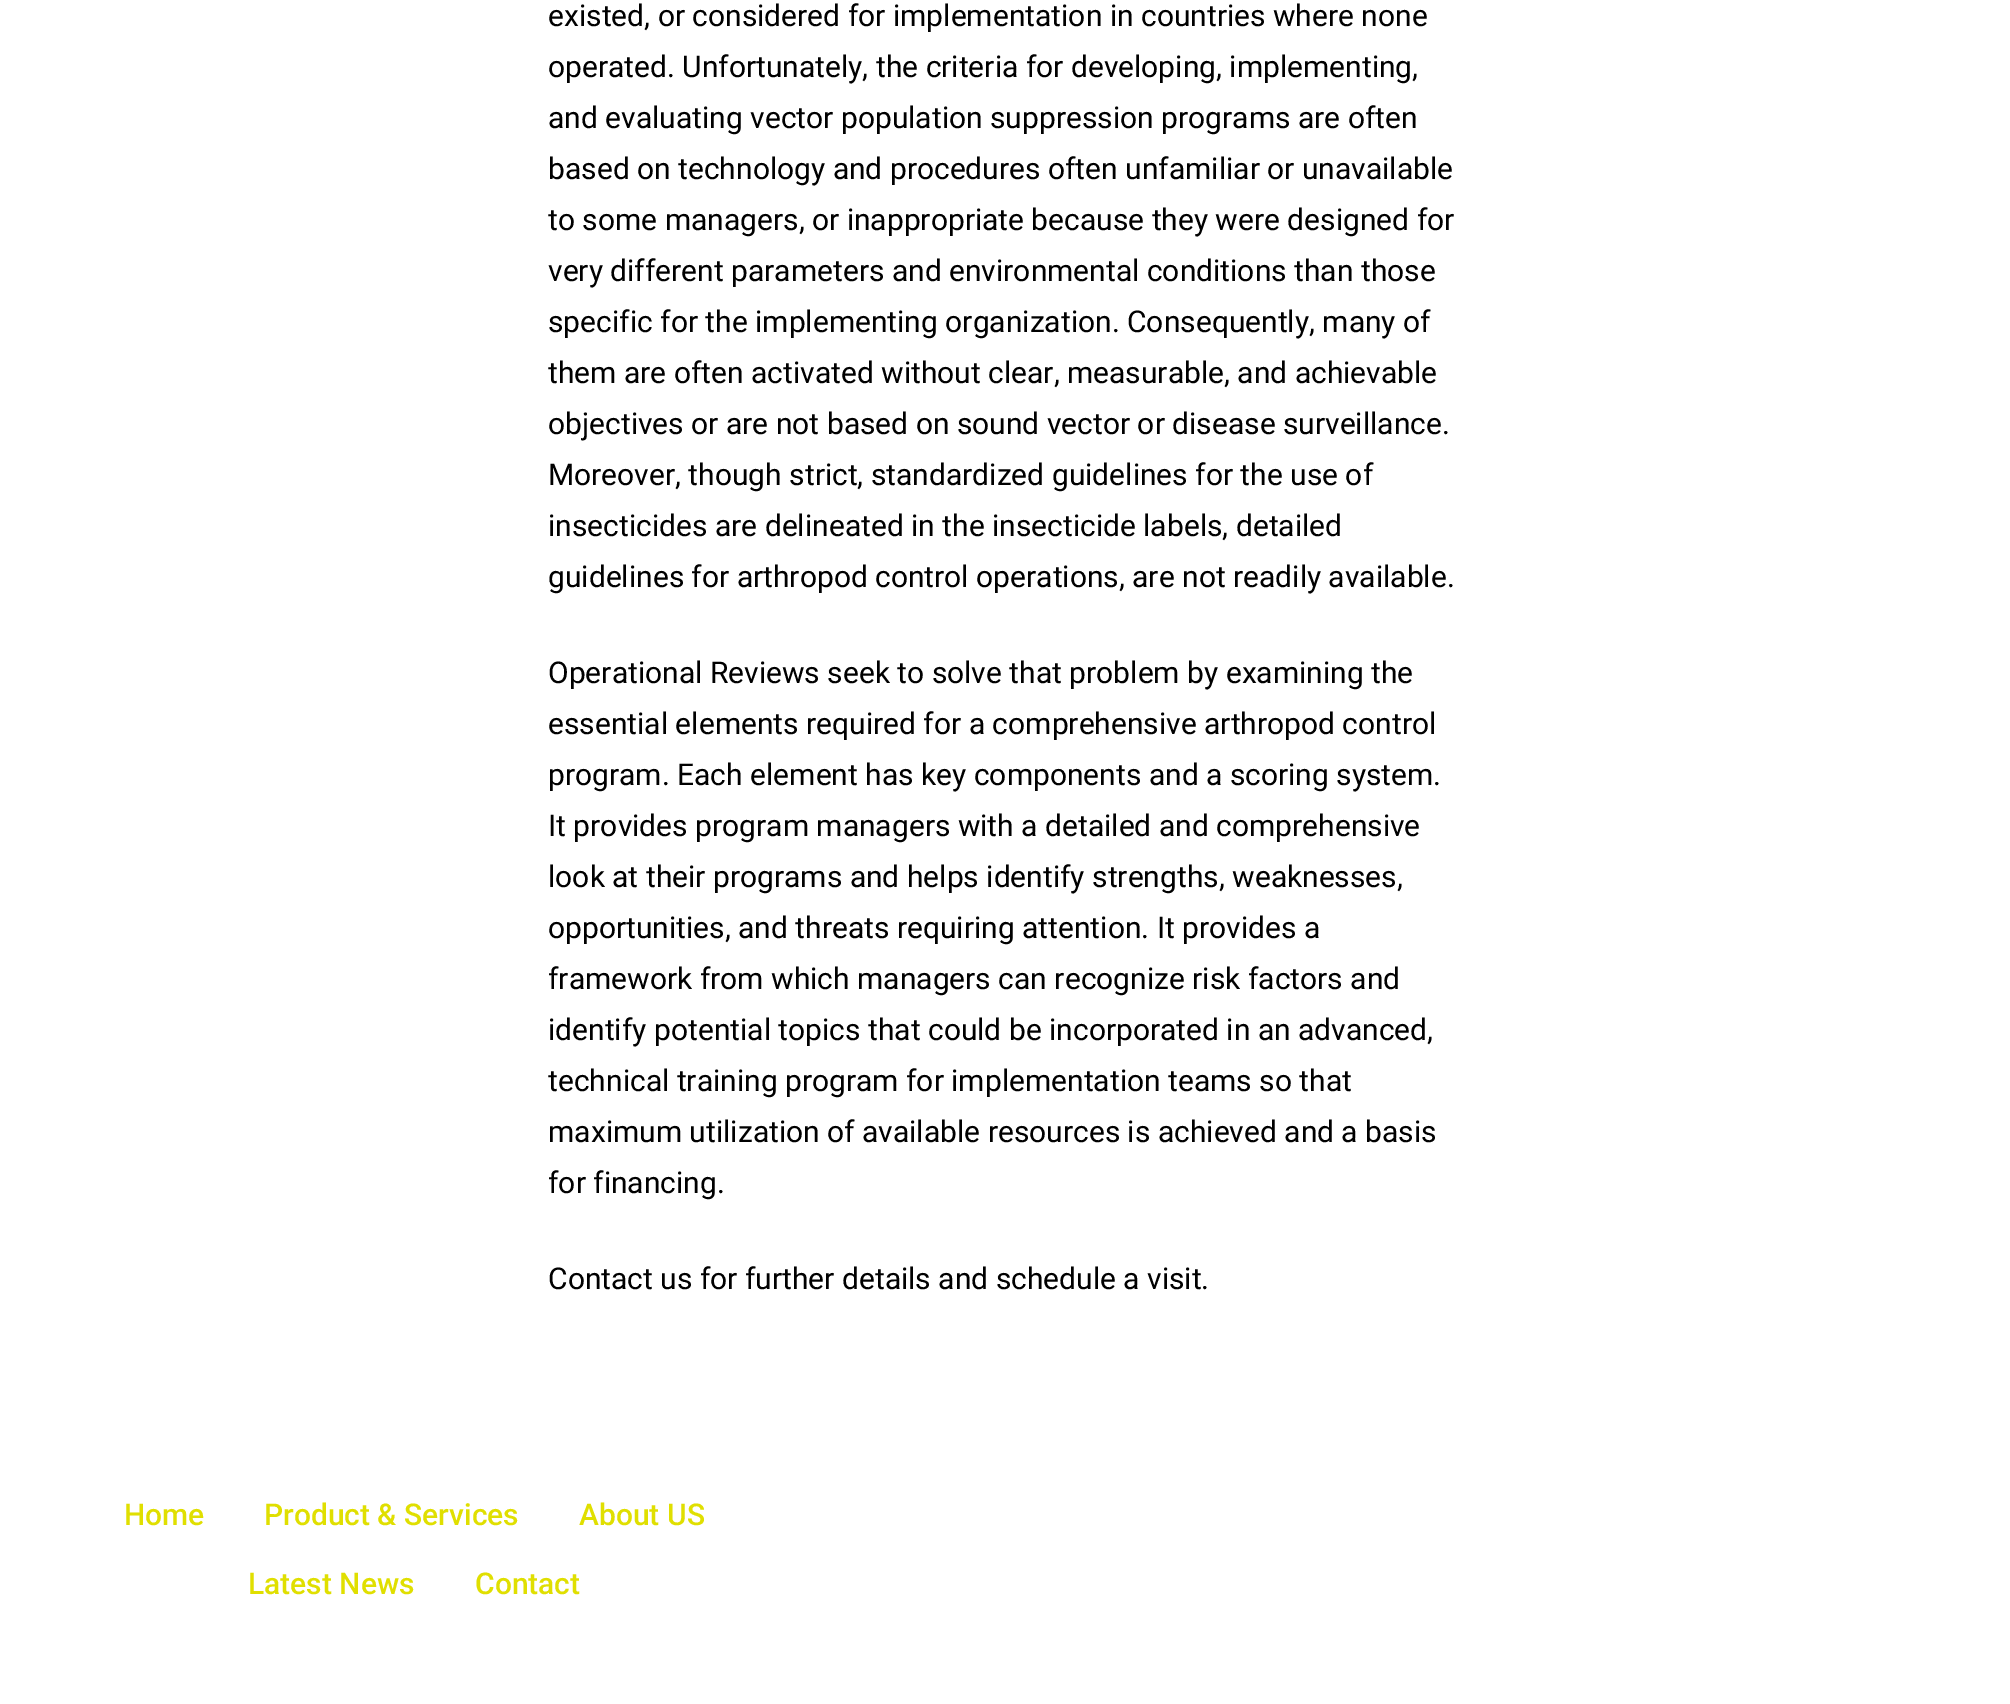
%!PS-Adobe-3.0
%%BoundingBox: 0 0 2010 1704
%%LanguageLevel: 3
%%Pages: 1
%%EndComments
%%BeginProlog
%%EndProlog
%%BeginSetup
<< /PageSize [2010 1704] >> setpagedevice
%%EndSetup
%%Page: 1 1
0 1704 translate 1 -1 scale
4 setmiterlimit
1 setgray
0 0 2010 1704 rectfill
/Roboto-Regular [30 0 0 -30 0 0] selectfont
0 setgray
548 26 moveto (existed, or considered for implementation in countries where none) show
548 77 moveto (operated. Unfortunately, the criteria for developing, implementing,) show
548 128 moveto (and evaluating vector population suppression programs are often) show
548 179 moveto (based on technology and procedures often unfamiliar or unavailable) show
548 230 moveto (to some managers, or inappropriate because they were designed for) show
548 281 moveto (very different parameters and environmental conditions than those) show
548 332 moveto (specific for the implementing organization. Consequently, many of) show
548 383 moveto (them are often activated without clear, measurable, and achievable) show
548 434 moveto (objectives or are not based on sound vector or disease surveillance.) show
548 485 moveto (Moreover, though strict, standardized guidelines for the use of) show
548 536 moveto (insecticides are delineated in the insecticide labels, detailed) show
548 587 moveto (guidelines for arthropod control operations, are not readily available.) show
548 683 moveto (Operational Reviews seek to solve that problem by examining the) show
548 734 moveto (essential elements required for a comprehensive arthropod control) show
548 785 moveto (program. Each element has key components and a scoring system.) show
548 836 moveto (It provides program managers with a detailed and comprehensive) show
548 887 moveto (look at their programs and helps identify strengths, weaknesses,) show
548 938 moveto (opportunities, and threats requiring attention. It provides a) show
548 989 moveto (framework from which managers can recognize risk factors and) show
548 1040 moveto (identify potential topics that could be incorporated in an advanced,) show
548 1091 moveto (technical training program for implementation teams so that) show
548 1142 moveto (maximum utilization of available resources is achieved and a basis) show
548 1193 moveto (for financing.) show
548 1289 moveto (Contact us for further details and schedule a visit.) show
/Roboto-Medium [30 0 0 -30 0 0] selectfont
0.878 0.875 0 setrgbcolor
124 1525 moveto (Home) show
264 1525 moveto (Product & Services) show
579 1525 moveto (About US) show
248 1594 moveto (Latest News) show
475 1594 moveto (Contact) show
showpage
%%EOF
